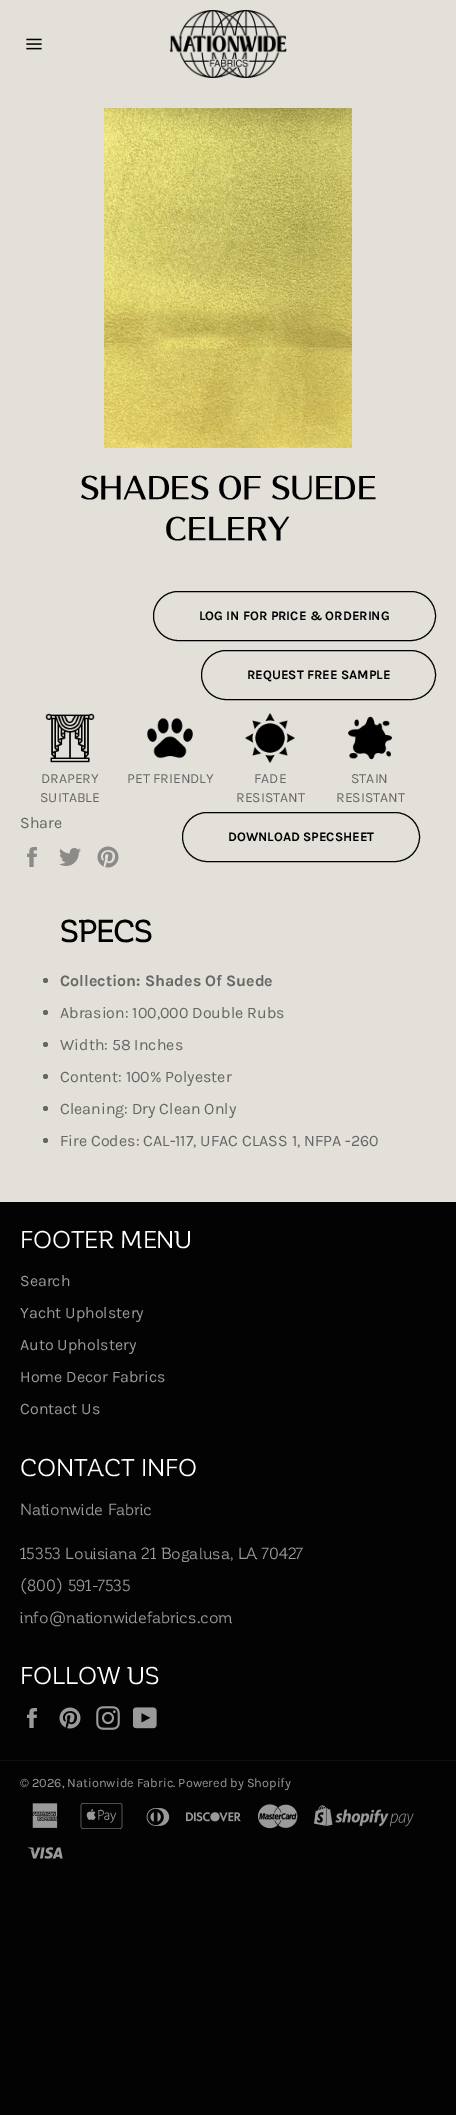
%!PS-Adobe-3.0
%%BoundingBox: 0 0 456 2115
%%LanguageLevel: 3
%%Pages: 1
%%EndComments
%%BeginProlog
/rrect { 5 dict begin { /r /h /w /y /x } { exch def } forall
  x r add y moveto x w add y 2 copy h add r arct x w add y h add x 1 index r arct
  x y h add x y r arct x y 2 copy exch w add exch r arct closepath end } def
/drawimage { 5 dict begin { /h /w /y /x /name } { exch def } forall
  gsave x y translate w h scale
  w h 8 [w 0 0 h 0 0] name (r) file false 3 colorimage grestore end } def
%%EndProlog
%%BeginSetup
<< /PageSize [456 2115] >> setpagedevice
%%EndSetup
%%Page: 1 1
0 2115 translate 1 -1 scale
4 setmiterlimit
0.012 setgray
0 0 456 2115 rectfill
0.89 0.875 0.851 setrgbcolor
0 0 456 1202 rectfill
(images/1.raw) 26 38 16 12 drawimage
(images/2.raw) 170 10 117 68 drawimage
(images/3.raw) 104 108 248 340 drawimage
0 setgray
153.5 591.5 282 49 24.5 rrect stroke
201.5 650.5 234 49 24.5 rrect stroke
(images/4.raw) 45 713 50 50 drawimage
(images/5.raw) 147 717 46 42 drawimage
(images/6.raw) 245 713 50 50 drawimage
(images/7.raw) 348 716 44 44 drawimage
(images/8.raw) 27 847 10 20 drawimage
(images/9.raw) 59 848 22 18 drawimage
(images/10.raw) 97 846 22 22 drawimage
182.5 812.5 237 49 24.5 rrect stroke
0.4 setgray
newpath 45.5 980.5 2.5 0 360 arc closepath fill
newpath 45.5 1012.5 2.5 0 360 arc closepath fill
newpath 45.5 1044.5 2.5 0 360 arc closepath fill
newpath 45.5 1076.5 2.5 0 360 arc closepath fill
newpath 45.5 1108.5 2.5 0 360 arc closepath fill
newpath 45.5 1140.5 2.5 0 360 arc closepath fill
(images/11.raw) 27 1708 10 20 drawimage
(images/12.raw) 59 1707 22 22 drawimage
(images/13.raw) 96 1706 24 24 drawimage
(images/14.raw) 133 1707 24 22 drawimage
0.063 setgray
0 1760 456 1 rectfill
(images/15.raw) 32 1803 26 25 drawimage
(images/16.raw) 80 1803 43 26 drawimage
(images/17.raw) 146 1808 24 18 drawimage
(images/18.raw) 186 1812 55 10 drawimage
(images/19.raw) 258 1804 40 25 drawimage
(images/20.raw) 314 1805 100 22 drawimage
(images/21.raw) 27 1847 36 12 drawimage
/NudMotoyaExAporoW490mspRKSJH-Regular [30 0 0 -30 0 0] selectfont
0 setgray
80 499 moveto (SHADES OF SUEDE) show
165 540 moveto (CELERY) show
/Karla-Bold [13 0 0 -13 0 0] selectfont
199 620 moveto (LOG IN FOR PRICE & ORDERING) show
247 679 moveto (REQUEST FREE SAMPLE) show
/Karla-Regular [14 0 0 -14 0 0] selectfont
0.4 setgray
41 783 moveto (DRAPERY) show
40 802 moveto (SUITABLE) show
127 783 moveto (PET FRIENDLY) show
254 783 moveto (FADE) show
236 802 moveto (RESISTANT) show
351 783 moveto (STAIN) show
336 802 moveto (RESISTANT) show
/Karla-Regular [16 0 0 -16 0 0] selectfont
20 828 moveto (Share) show
/Karla-Bold [13 0 0 -13 0 0] selectfont
0 setgray
228 841 moveto (DOWNLOAD SPECSHEET) show
/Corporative-Bold [30 0 0 -30 0 0] selectfont
60 942 moveto (SPECS) show
/Karla-Bold [16 0 0 -16 0 0] selectfont
0.4 setgray
60 986 moveto (Collection: Shades Of Suede) show
/Karla-Regular [16 0 0 -16 0 0] selectfont
60 1018 moveto (Abrasion: 100,000 Double Rubs) show
60 1050 moveto (Width: 58 Inches) show
60 1082 moveto (Content: 100% Polyester) show
60 1114 moveto (Cleaning: Dry Clean Only) show
60 1146 moveto (Fire Codes: CAL-117, UFAC CLASS 1, NFPA -260) show
/Corporative-Regular [24 0 0 -24 0 0] selectfont
1 setgray
20 1248 moveto (FOOTER MENU) show
/Karla-Regular [16 0 0 -16 0 0] selectfont
0.604 setgray
20 1286 moveto (Search) show
20 1318 moveto (Yacht Upholstery) show
20 1350 moveto (Auto Upholstery) show
20 1382 moveto (Home Decor Fabrics) show
20 1414 moveto (Contact Us) show
/Corporative-Regular [24 0 0 -24 0 0] selectfont
1 setgray
20 1476 moveto (CONTACT INFO) show
/Corporative-Regular [16 0 0 -16 0 0] selectfont
0.604 setgray
20 1515 moveto (Nationwide Fabric) show
20 1559 moveto (15353 Louisiana 21 Bogalusa, LA 70427) show
20 1591 moveto (\(800\) 591-7535) show
20 1623 moveto (info@nationwidefabrics.com) show
/Corporative-Regular [24 0 0 -24 0 0] selectfont
1 setgray
20 1684 moveto (FOLLOW US) show
/Karla-Regular [12.8 0 0 -12.8 0 0] selectfont
0.604 setgray
20 1787 moveto (© 2026, Nationwide Fabric. Powered by Shopify) show
showpage
%%EOF
